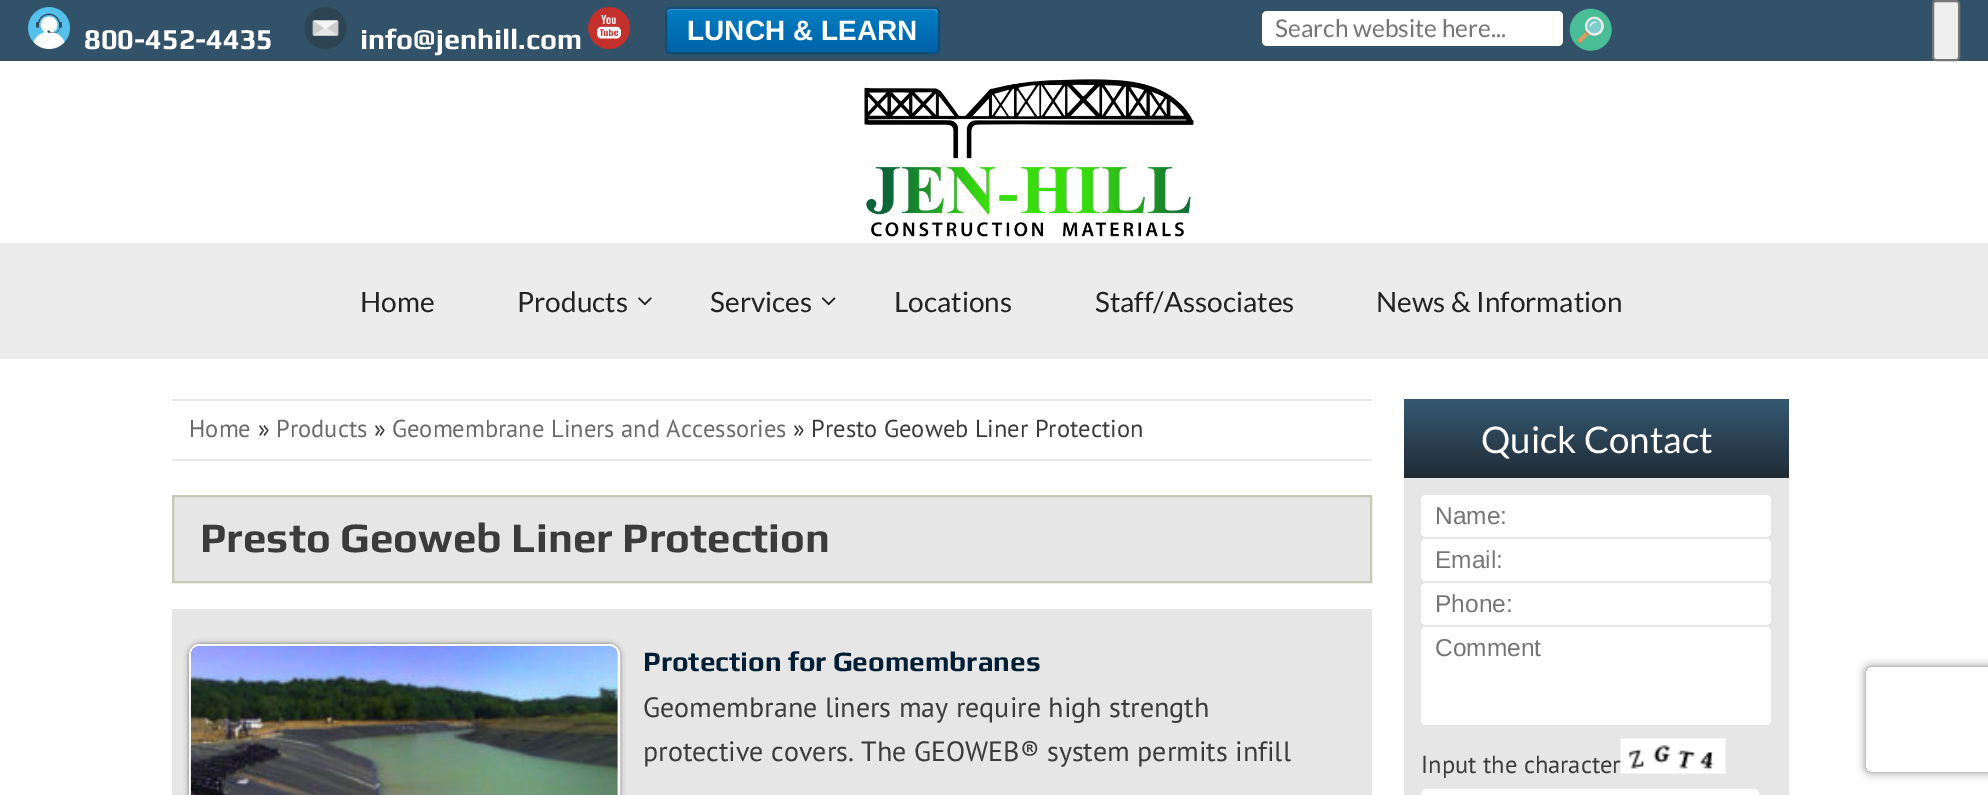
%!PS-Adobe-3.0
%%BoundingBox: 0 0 1988 795
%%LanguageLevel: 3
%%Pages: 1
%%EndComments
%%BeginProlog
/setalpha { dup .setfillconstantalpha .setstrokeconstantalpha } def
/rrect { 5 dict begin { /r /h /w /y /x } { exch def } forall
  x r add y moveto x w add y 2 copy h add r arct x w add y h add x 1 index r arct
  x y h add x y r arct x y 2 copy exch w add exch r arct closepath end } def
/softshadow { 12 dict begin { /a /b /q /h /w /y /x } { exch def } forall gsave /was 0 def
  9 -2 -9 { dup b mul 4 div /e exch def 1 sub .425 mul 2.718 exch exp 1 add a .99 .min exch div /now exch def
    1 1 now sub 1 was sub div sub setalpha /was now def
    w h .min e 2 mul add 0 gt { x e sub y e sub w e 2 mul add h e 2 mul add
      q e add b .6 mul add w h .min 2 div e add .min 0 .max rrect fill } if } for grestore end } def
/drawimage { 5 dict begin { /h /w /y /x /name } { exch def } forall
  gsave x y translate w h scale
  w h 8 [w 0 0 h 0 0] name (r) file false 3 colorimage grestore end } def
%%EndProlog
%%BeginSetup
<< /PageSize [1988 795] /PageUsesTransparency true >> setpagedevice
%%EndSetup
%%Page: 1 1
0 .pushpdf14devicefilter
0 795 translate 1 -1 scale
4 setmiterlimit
1 setgray
0 0 1988 795 rectfill
0.192 0.322 0.412 setrgbcolor
0 0 1988 61 rectfill
(images/1.raw) 28 7 42 42 drawimage
(images/2.raw) 304 7 43 42 drawimage
(images/3.raw) 588 7 42 42 drawimage
gsave
665 7 275 47 5 rrect clip newpath
gsave newpath 665 9 moveto 940 9 lineto 940 53 lineto 665 53 lineto closepath clip newpath
<< /ShadingType 2 /ColorSpace /DeviceRGB /Coords [802 9 802 53] /Extend [true true] /Function << /FunctionType 3 /Domain [0 1] /Functions [<< /FunctionType 2 /Domain [0 1] /C0 [0 0.49 0.757] /C1 [0 0.49 0.757] /N 1 >> << /FunctionType 2 /Domain [0 1] /C0 [0 0.49 0.757] /C1 [0 0.38 0.655] /N 1 >>] /Bounds [0.05] /Encode [0 1 0 1] >> >> shfill grestore
grestore
0.329 0.639 0.969 setrgbcolor
newpath 670 10 moveto 934 10 lineto 936 10 938 12 938 14 curveto 938 11 937 9 934 9 curveto 671 9 lineto 668 9 667 11 667 14 curveto 667 12 668 10 670 10 curveto closepath fill
0.071 0.302 0.467 setrgbcolor
2 setlinewidth
666 8 273 45 4 rrect stroke
1 setgray
1262 11 301 35 5 rrect fill
(images/4.raw) 1569 8 43 43 drawimage
0.937 setgray
1933 1 26 59 3 rrect gsave fill grestore
0.463 setgray
stroke
(images/5.raw) 864 79 330 158 drawimage
0.925 setgray
0 243 1988 116 rectfill
(images/6.raw) 638 297 14 9 drawimage
(images/7.raw) 821 297 15 9 drawimage
0.91 setgray
172 399 1200 2 rectfill
172 459 1200 2 rectfill
0.902 setgray
newpath 173 496 moveto 1371 496 lineto 1371 582 lineto 173 582 lineto closepath gsave fill grestore
0.784 0.784 0.718 setrgbcolor
stroke
0.902 setgray
172 609 1200 186 rectfill
0 setgray
189 644 431 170 11 2.5 0.5 softshadow
1 setgray
190 645 429 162 10 rrect stroke
(images/8.raw) 190 645 428 150 drawimage
0.902 setgray
1404 478 385 317 rectfill
gsave newpath 1404 399 moveto 1789 399 lineto 1789 478 lineto 1404 478 lineto closepath clip newpath
<< /ShadingType 2 /ColorSpace /DeviceRGB /Coords [1596 399 1596 478] /Extend [true true] /Function << /FunctionType 2 /Domain [0 1] /C0 [0.208 0.349 0.451] /C1 [0.129 0.169 0.208] /N 1 >> >> shfill grestore
1 setgray
1421 495 350 42 5 rrect fill
1421 539 350 42 5 rrect fill
1421 583 350 42 5 rrect fill
1421 627 350 98 5 rrect fill
1421 789 338 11 5 rrect fill
gsave
newpath 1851 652 moveto 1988 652 lineto 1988 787 lineto 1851 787 lineto closepath 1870 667 moveto 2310 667 lineto 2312 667 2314 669 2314 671 curveto 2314 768 lineto 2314 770 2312 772 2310 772 curveto 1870 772 lineto 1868 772 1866 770 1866 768 curveto 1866 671 lineto 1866 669 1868 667 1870 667 curveto closepath eoclip newpath
0.502 setgray
1866 667 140 105 4 4.5 1 softshadow
grestore
/Play-Bold [28.75 0 0 -28.75 0 0] selectfont
84 49 moveto (800-452-4435) show
360 49 moveto (info@jenhill.com) show
/LiberationSans-Bold [28 0 0 -28 0 0] selectfont
687 40 moveto (LUNCH & LEARN) show
/Lato-Regular [24.5 0 0 -24.5 0 0] selectfont
0.459 setgray
1275 37 moveto (Search website here...) show
/Lato-Regular [28 0 0 -28 0 0] selectfont
0.133 setgray
360 312 moveto (Home) show
517 312 moveto (Products) show
710 312 moveto (Services) show
894 312 moveto (Locations) show
1095 312 moveto (Staff/Associates) show
1376 312 moveto (News & Information) show
/PTSans-Regular [24.5 0 0 -24.5 0 0] selectfont
0.416 setgray
189 437 moveto (Home) show
0.231 setgray
258 437 moveto (») show
0.416 setgray
276 437 moveto (Products) show
0.231 setgray
374 437 moveto (») show
0.416 setgray
392 437 moveto (Geomembrane Liners and Accessories) show
0.231 setgray
793 437 moveto (» Presto Geoweb Liner Protection) show
/Play-Bold [42 0 0 -42 0 0] selectfont
200 552 moveto (Presto Geoweb Liner Protection) show
/Play-Bold [28 0 0 -28 0 0] selectfont
0.004 0.122 0.204 setrgbcolor
643 671 moveto (Protection for Geomembranes) show
/PTSans-Regular [28 0 0 -28 0 0] selectfont
0.231 setgray
643 717 moveto (Geomembrane liners may require high strength) show
643 761 moveto (protective covers. The GEOWEB® system permits infill) show
/Lato-Regular [36.75 0 0 -36.75 0 0] selectfont
1 setgray
1481 453 moveto (Quick Contact) show
/LiberationSans-Regular [24.5 0 0 -24.5 0 0] selectfont
0.459 setgray
1435 524 moveto (Name:) show
1435 568 moveto (Email:) show
1435 612 moveto (Phone:) show
1435 656 moveto (Comment) show
/PTSans-Regular [24.5 0 0 -24.5 0 0] selectfont
0.231 setgray
1421 773 moveto (Input the character) show
(images/9.raw) 1620 738 106 36 drawimage
.poppdf14devicefilter showpage
%%EOF
